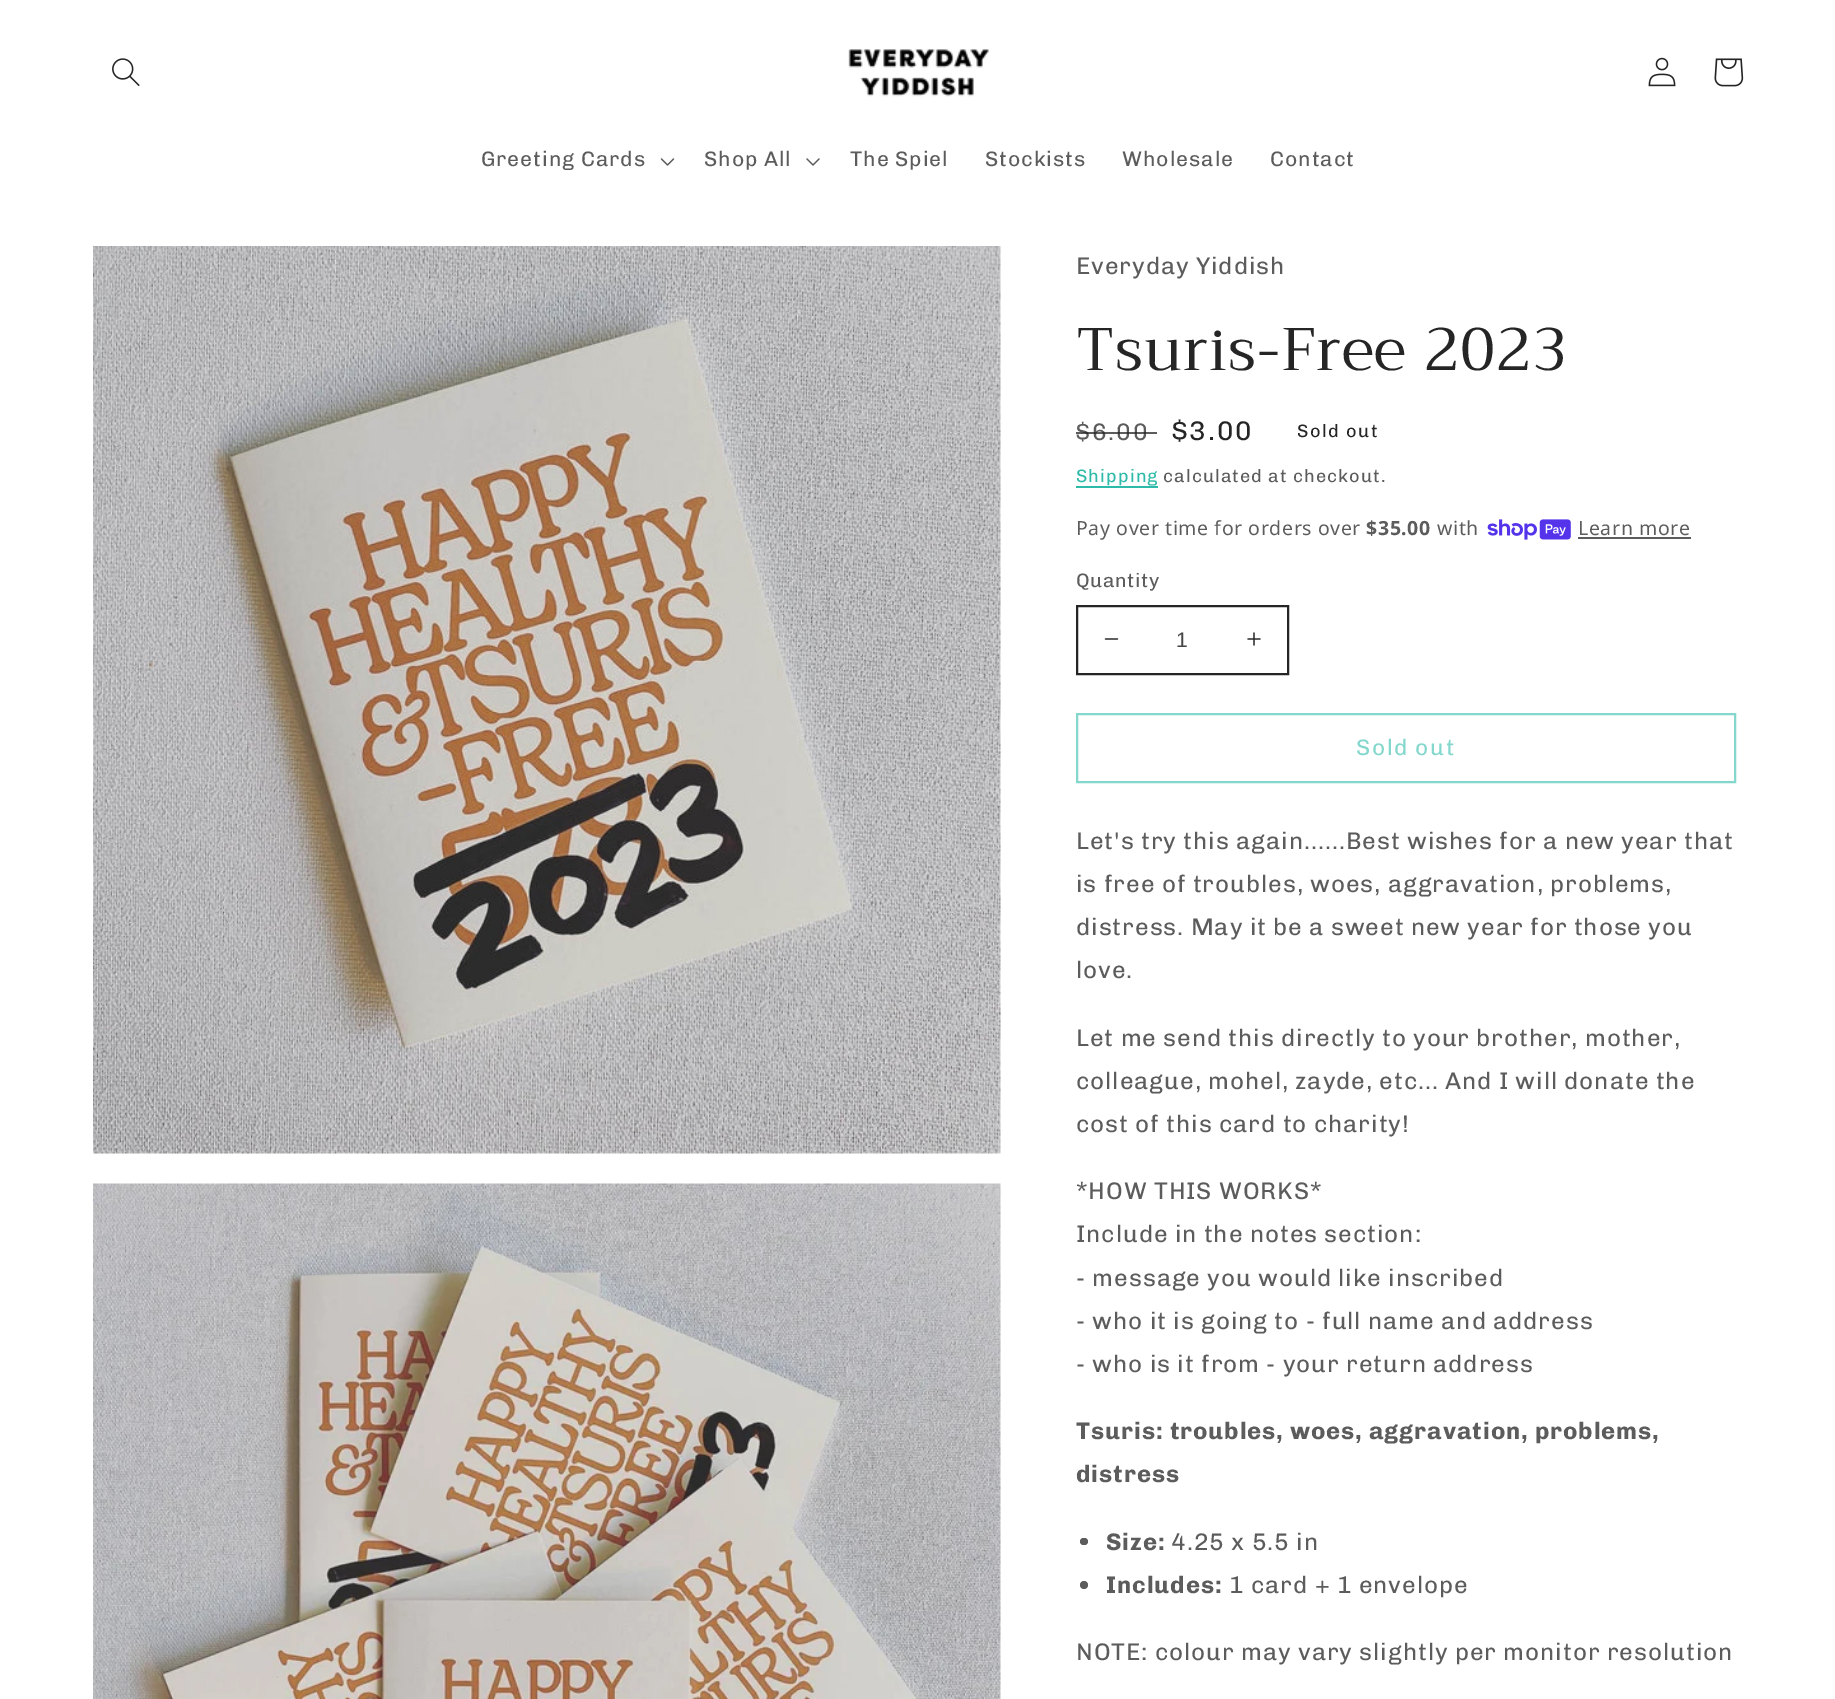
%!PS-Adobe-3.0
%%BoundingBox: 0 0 1835 1699
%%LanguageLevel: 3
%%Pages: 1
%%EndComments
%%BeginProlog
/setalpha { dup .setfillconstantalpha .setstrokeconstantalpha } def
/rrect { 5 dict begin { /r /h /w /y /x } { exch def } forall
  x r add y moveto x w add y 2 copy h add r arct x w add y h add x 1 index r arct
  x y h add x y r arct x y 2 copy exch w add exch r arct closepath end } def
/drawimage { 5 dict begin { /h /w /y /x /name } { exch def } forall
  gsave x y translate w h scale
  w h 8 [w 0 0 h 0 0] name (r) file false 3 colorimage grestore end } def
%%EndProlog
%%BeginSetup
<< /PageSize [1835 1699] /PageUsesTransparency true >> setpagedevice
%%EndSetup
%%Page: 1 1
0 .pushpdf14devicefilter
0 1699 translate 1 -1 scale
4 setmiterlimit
1 setgray
0 0 1835 1699 rectfill
(images/1.raw) 112 58 28 28 drawimage
(images/2.raw) 848 49 141 48 drawimage
(images/3.raw) 1648 57 28 30 drawimage
(images/4.raw) 1714 58 30 29 drawimage
(images/5.raw) 660 158 15 8 drawimage
(images/6.raw) 806 158 14 8 drawimage
(images/7.raw) 93 246 908 908 drawimage
(images/8.raw) 93 1183 908 516 drawimage
0.176 0.729 0.659 setrgbcolor
1076 486 82 2 rectfill
(images/9.raw) 1487 519 84 21 drawimage
0.361 setgray
1578 537 113 2 rectfill
(images/10.raw) 1104 638 15 2 drawimage
(images/11.raw) 1247 632 14 14 drawimage
0.145 setgray
2 setlinewidth
1077 606 211 68 rectstroke
0.518 0.843 0.8 setrgbcolor
1077 714 658 68 rectstroke
0.361 setgray
1080 1538 8 7 3.5 rrect fill
newpath 1084 1585 4 0 360 arc closepath fill
/Chivo-Regular [21 0 0 -21 0 0] selectfont
481 166 moveto 0.9 0 (Greeting Cards) ashow
704 166 moveto 0.9 0 (Shop All) ashow
850 166 moveto 0.9 0 (The Spiel) ashow
985 166 moveto 0.9 0 (Stockists) ashow
1122 166 moveto 0.9 0 (Wholesale) ashow
1270 166 moveto 0.9 0 (Contact) ashow
/Chivo-Regular [24 0 0 -24 0 0] selectfont
1076 274 moveto 0.9 0 (Everyday Yiddish) ashow
/Trirong-Regular [60 0 0 -60 0 0] selectfont
0.145 setgray
1076 370 moveto 0.9 0 (Tsuris-Free 2023) ashow
/Chivo-Regular [24 0 0 -24 0 0] selectfont
0.361 setgray
1076 440 moveto 2 0 ($6.00) ashow
0.75 setalpha
0.145 setgray
1076 432 81 2 rectfill
/Chivo-Regular [27 0 0 -27 0 0] selectfont
1 setalpha
1172 440 moveto 2 0 ($3.00) ashow
/Chivo-Regular [18 0 0 -18 0 0] selectfont
1297 437 moveto 1.5 0 (Sold out) ashow
0.176 0.729 0.659 setrgbcolor
1076 482 moveto 1.05 0 (Shipping) ashow
0.361 setgray
1163 482 moveto 1.05 0 (calculated at checkout.) ashow
/NotoSans-Regular [19.5 0 0 -19.5 0 0] selectfont
1076 535 moveto 0.6 0 (Pay over time for orders over) ashow
/NotoSans-Bold [19.5 0 0 -19.5 0 0] selectfont
1366 535 moveto 0.6 0 ($35.00) ashow
/NotoSans-Regular [19.5 0 0 -19.5 0 0] selectfont
1437 535 moveto 0.6 0 (with) ashow
1578 535 moveto 0.6 0 (Learn more) ashow
/Chivo-Regular [19.5 0 0 -19.5 0 0] selectfont
1076 587 moveto 0.6 0 (Quantity) ashow
/LiberationSans-Regular [21 0 0 -21 0 0] selectfont
0.275 setgray
1176 647 moveto (1) show
/Chivo-Regular [22.5 0 0 -22.5 0 0] selectfont
0.518 0.843 0.8 setrgbcolor
1356 755 moveto 1.5 0 (Sold out) ashow
/Chivo-Regular [24 0 0 -24 0 0] selectfont
0.361 setgray
1076 849 moveto 0.9 0 (Let's try this again......Best wishes for a new year that) ashow
1076 892 moveto 0.9 0 (is free of troubles, woes, aggravation, problems,) ashow
1076 935 moveto 0.9 0 (distress. May it be a sweet new year for those you) ashow
1076 978 moveto 0.9 0 (love.) ashow
1076 1046 moveto 0.9 0 (Let me send this directly to your brother, mother,) ashow
1076 1089 moveto 0.9 0 (colleague, mohel, zayde, etc... And I will donate the) ashow
1076 1132 moveto 0.9 0 (cost of this card to charity!) ashow
1076 1199 moveto 0.9 0 (*HOW THIS WORKS*) ashow
1076 1242 moveto 0.9 0 (Include in the notes section:) ashow
1076 1286 moveto 0.9 0 (- message you would like inscribed) ashow
1076 1329 moveto 0.9 0 (- who it is going to - full name and address) ashow
1076 1372 moveto 0.9 0 (- who is it from - your return address) ashow
/Chivo-Bold [24 0 0 -24 0 0] selectfont
1076 1439 moveto 0.9 0 (Tsuris: troubles, woes, aggravation, problems,) ashow
1076 1482 moveto 0.9 0 (distress) ashow
1106 1550 moveto 0.9 0 (Size:) ashow
/Chivo-Regular [24 0 0 -24 0 0] selectfont
1171 1550 moveto 0.9 0 (4.25 x 5.5 in) ashow
/Chivo-Bold [24 0 0 -24 0 0] selectfont
1106 1593 moveto 0.9 0 (Includes:) ashow
/Chivo-Regular [24 0 0 -24 0 0] selectfont
1229 1593 moveto 0.9 0 (1 card + 1 envelope) ashow
1076 1660 moveto 0.9 0 (NOTE: colour may vary slightly per monitor resolution) ashow
.poppdf14devicefilter showpage
%%EOF
